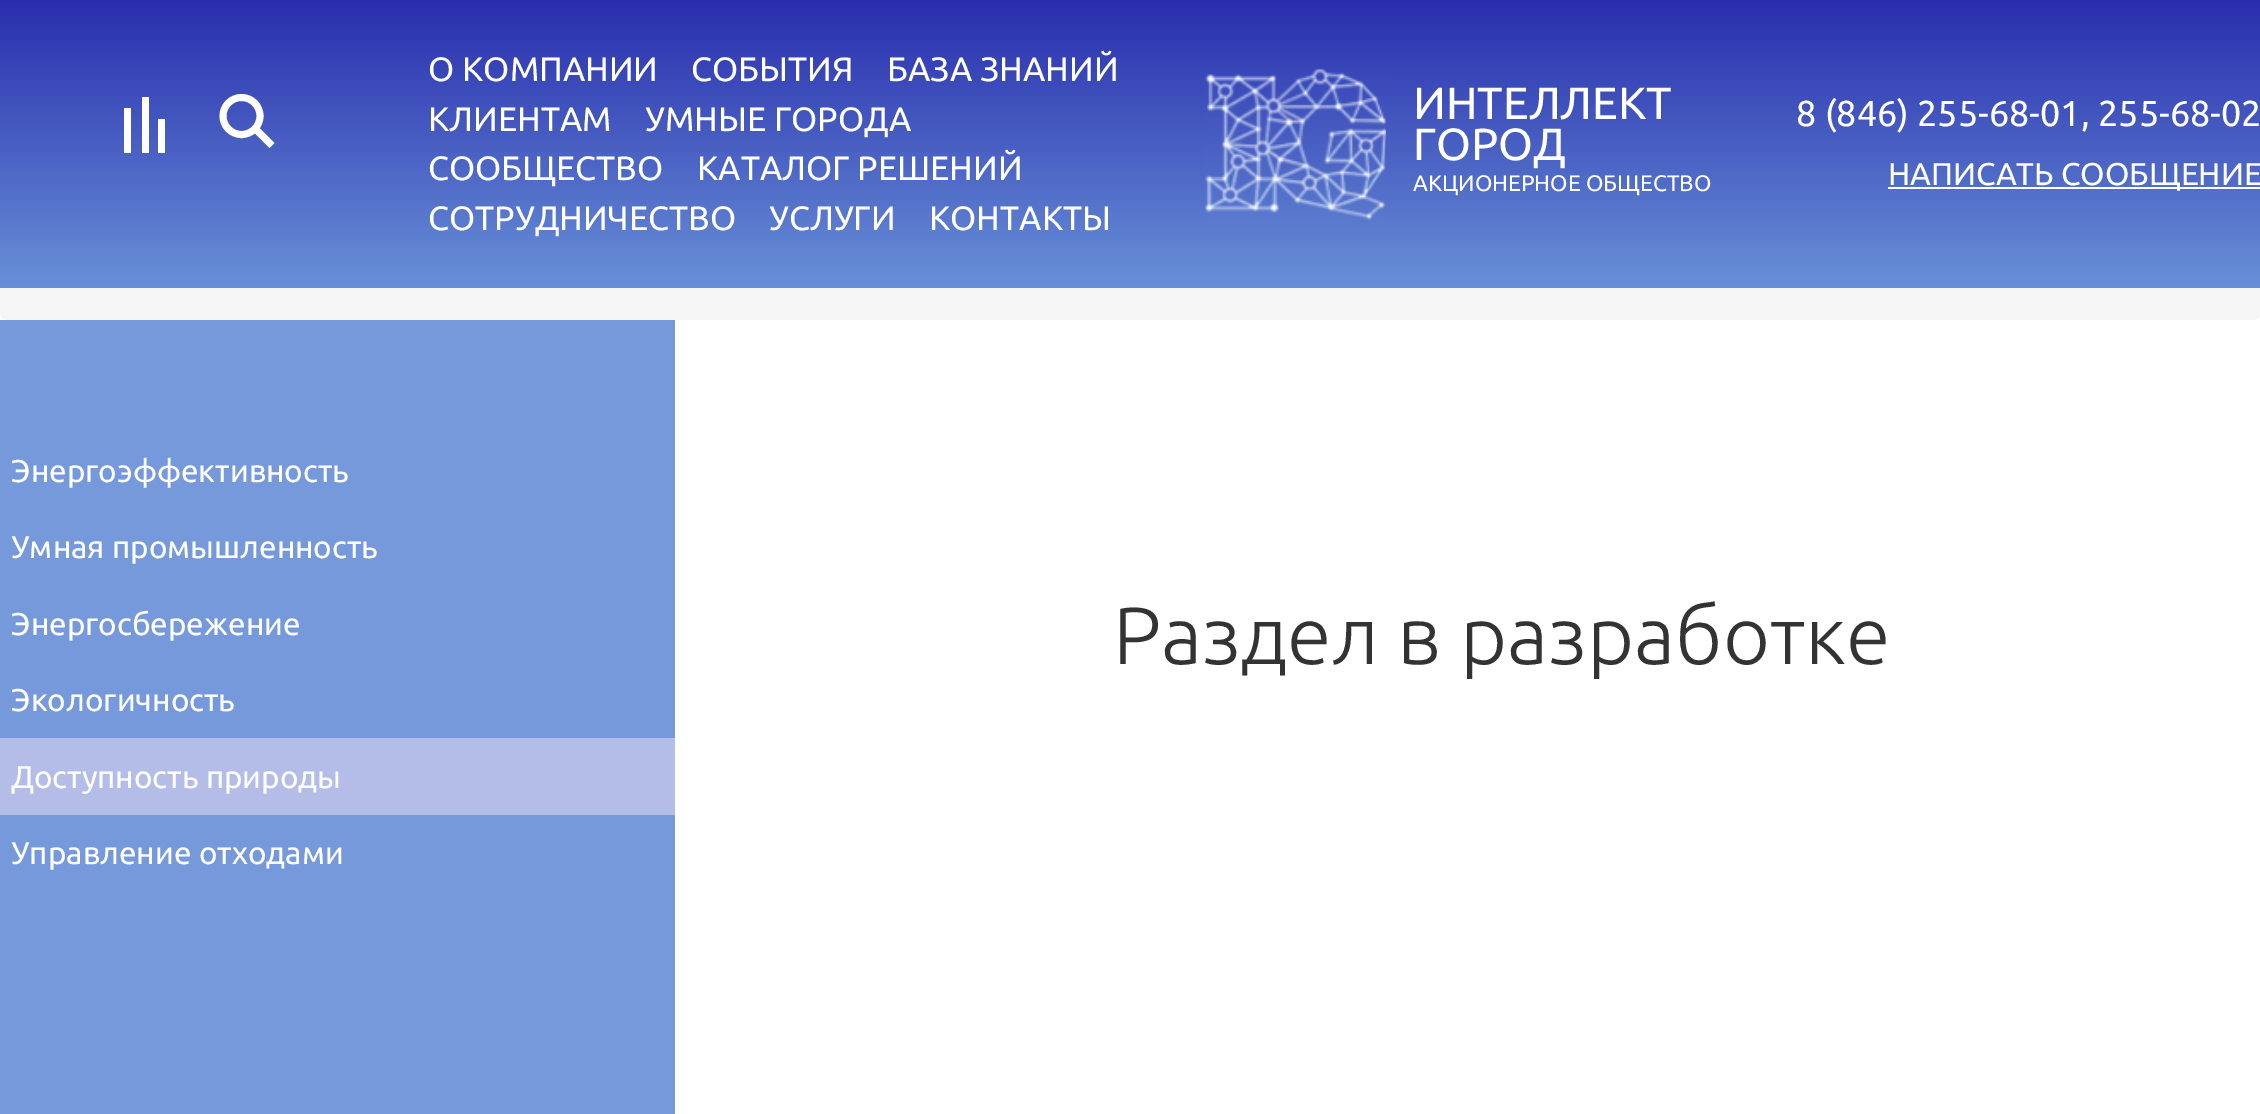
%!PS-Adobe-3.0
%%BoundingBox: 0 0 2260 1114
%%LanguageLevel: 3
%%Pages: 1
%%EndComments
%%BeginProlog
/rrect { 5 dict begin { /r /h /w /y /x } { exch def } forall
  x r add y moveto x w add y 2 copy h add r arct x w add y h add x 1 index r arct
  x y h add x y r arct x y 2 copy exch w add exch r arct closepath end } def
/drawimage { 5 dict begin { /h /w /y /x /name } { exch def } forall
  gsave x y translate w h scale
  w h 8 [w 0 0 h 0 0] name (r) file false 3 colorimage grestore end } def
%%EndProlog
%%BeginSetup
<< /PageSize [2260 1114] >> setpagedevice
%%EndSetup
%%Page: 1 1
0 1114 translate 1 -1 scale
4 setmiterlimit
1 setgray
0 0 2260 1114 rectfill
0.961 setgray
0 239 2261 81 9 rrect fill
gsave newpath 0 0 moveto 2260 0 lineto 2260 288 lineto 0 288 lineto closepath clip newpath
<< /ShadingType 2 /ColorSpace /DeviceRGB /Coords [1131 288 1131 0] /Extend [true true] /Function << /FunctionType 2 /Domain [0 1] /C0 [0.408 0.565 0.847] /C1 [0.161 0.18 0.678] /N 1 >> >> shfill grestore
1 setgray
124 108 7 45 rectfill
142 97 7 56 rectfill
158 119 7 34 rectfill
6.9 setlinewidth
newpath 241.5 116 18.5 0 360 arc closepath stroke
newpath 254 127.5 moveto 272 145.5 lineto stroke
(images/1.raw) 1205 68 181 152 drawimage
1888 187 372 2 rectfill
0.463 0.6 0.859 setrgbcolor
0 320 675 794 rectfill
0.702 0.741 0.91 setrgbcolor
0 738 675 77 rectfill
/Ubuntu-Regular [33.75 0 0 -33.75 0 0] selectfont
1 setgray
428 81 moveto (О КОМПАНИИ) show
691 81 moveto (СОБЫТИЯ) show
887 81 moveto (БАЗА ЗНАНИЙ) show
428 131 moveto (КЛИЕНТАМ) show
645 131 moveto (УМНЫЕ ГОРОДА) show
428 180 moveto (СООБЩЕСТВО) show
697 180 moveto (КАТАЛОГ РЕШЕНИЙ) show
428 230 moveto (СОТРУДНИЧЕСТВО) show
769 230 moveto (УСЛУГИ) show
929 230 moveto (КОНТАКТЫ) show
/Ubuntu-Regular [45 0 0 -45 0 0] selectfont
1413 119 moveto (ИНТЕЛЛЕКТ) show
1413 160 moveto (ГОРОД) show
/Ubuntu-Regular [22.5 0 0 -22.5 0 0] selectfont
1413 191 moveto (АКЦИОНЕРНОЕ ОБЩЕСТВО) show
/Ubuntu-Regular [36 0 0 -36 0 0] selectfont
1796 126 moveto (8 \(846\) 255-68-01, 255-68-02) show
/Ubuntu-Regular [31.5 0 0 -31.5 0 0] selectfont
1888 185 moveto (НАПИСАТЬ СООБЩЕНИЕ) show
11 482 moveto (Энергоэффективность) show
11 558 moveto (Умная промышленность) show
11 635 moveto (Энергосбережение) show
11 711 moveto (Экологичность) show
11 788 moveto (Доступность природы) show
11 864 moveto (Управление отходами) show
/Ubuntu-Light [81 0 0 -81 0 0] selectfont
0.2 setgray
1113 664 moveto (Раздел в разработке) show
showpage
%%EOF
